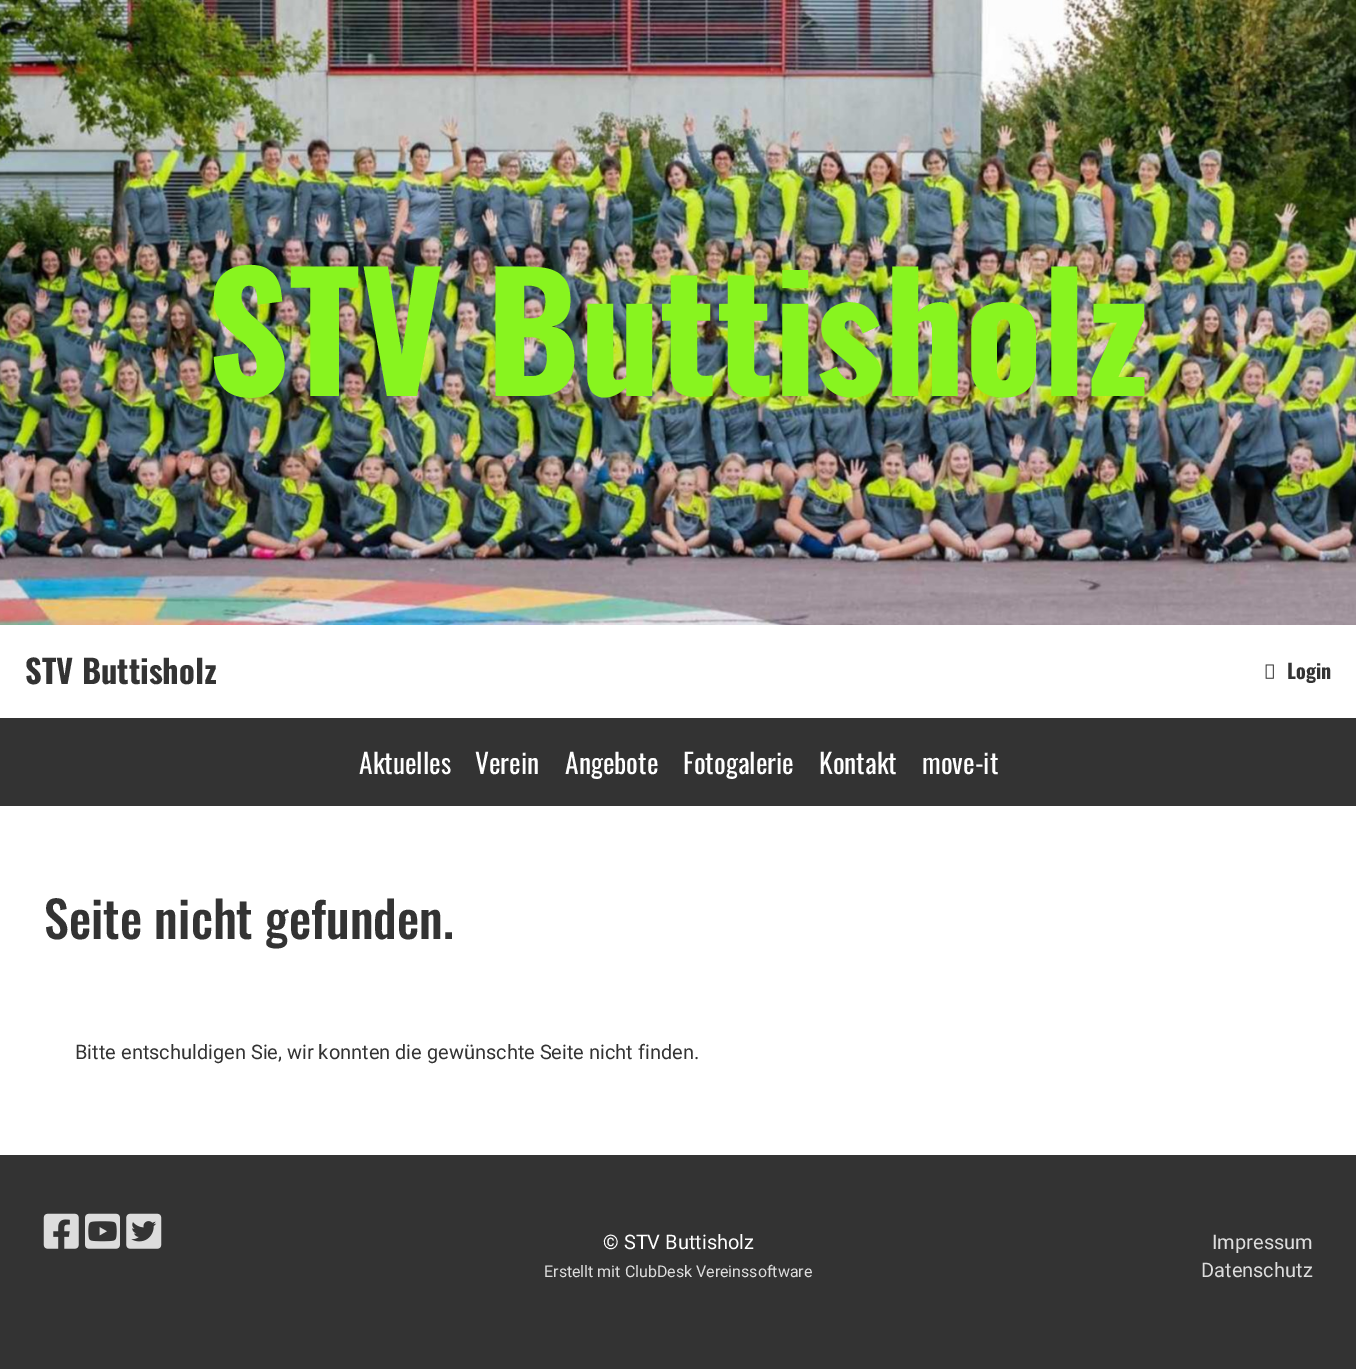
%!PS-Adobe-3.0
%%BoundingBox: 0 0 1356 1369
%%LanguageLevel: 3
%%Pages: 1
%%EndComments
%%BeginProlog
/drawimage { 5 dict begin { /h /w /y /x /name } { exch def } forall
  gsave x y translate w h scale
  w h 8 [w 0 0 h 0 0] name (r) file false 3 colorimage grestore end } def
%%EndProlog
%%BeginSetup
<< /PageSize [1356 1369] >> setpagedevice
%%EndSetup
%%Page: 1 1
0 1369 translate 1 -1 scale
4 setmiterlimit
1 setgray
0 0 1356 1369 rectfill
(images/1.raw) 0 0 1356 625 drawimage
(images/2.raw) 1265 664 9 15 drawimage
0.2 setgray
0 718 1356 88 rectfill
0 1155 1356 214 rectfill
(images/3.raw) 43 1213 36 36 drawimage
(images/4.raw) 85 1213 35 36 drawimage
(images/5.raw) 126 1213 36 36 drawimage
/Oswald-Bold [160 0 0 -160 0 0] selectfont
0.533 0.957 0.122 setrgbcolor
207 396 moveto (STV Buttisholz) show
/Oswald-Bold [32.5 0 0 -32.5 0 0] selectfont
0.2 setgray
25 684 moveto (STV Buttisholz) show
/Oswald-Bold [20 0 0 -20 0 0] selectfont
1287 679 moveto (Login) show
/Oswald-Regular [27.5 0 0 -27.5 0 0] selectfont
1 setgray
359 774 moveto (Aktuelles) show
475 774 moveto (Verein) show
565 774 moveto (Angebote) show
683 774 moveto (Fotogalerie) show
819 774 moveto (Kontakt) show
922 774 moveto (move-it) show
/Oswald-Medium [50 0 0 -50 0 0] selectfont
0.2 setgray
44 939 moveto (Seite nicht gefunden.) show
/Roboto-Regular [20 0 0 -20 0 0] selectfont
75 1059 moveto (Bitte entschuldigen Sie, wir konnten die gewünschte Seite nicht finden.) show
1 setgray
603 1249 moveto (© STV Buttisholz) show
/Roboto-Regular [16 0 0 -16 0 0] selectfont
0.867 setgray
544 1277 moveto (Erstellt mit ClubDesk Vereinssoftware) show
/Roboto-Regular [20 0 0 -20 0 0] selectfont
1212 1249 moveto (Impressum) show
1201 1277 moveto (Datenschutz) show
showpage
%%EOF
